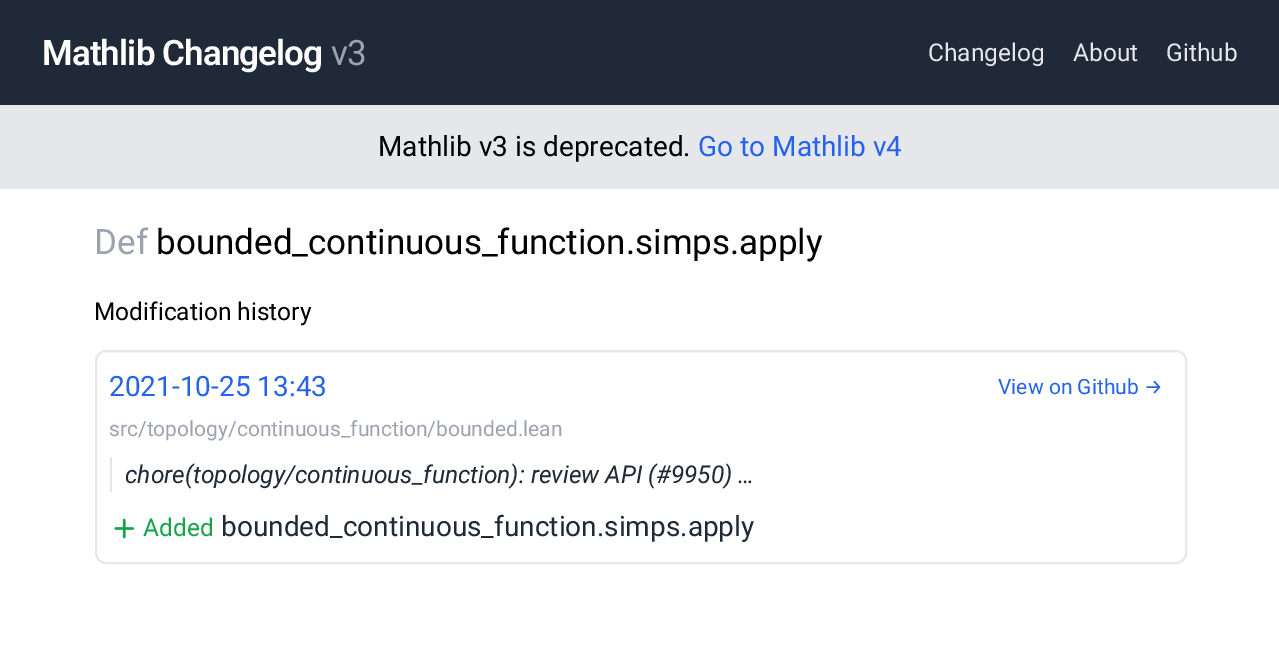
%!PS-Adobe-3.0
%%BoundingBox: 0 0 1279 671
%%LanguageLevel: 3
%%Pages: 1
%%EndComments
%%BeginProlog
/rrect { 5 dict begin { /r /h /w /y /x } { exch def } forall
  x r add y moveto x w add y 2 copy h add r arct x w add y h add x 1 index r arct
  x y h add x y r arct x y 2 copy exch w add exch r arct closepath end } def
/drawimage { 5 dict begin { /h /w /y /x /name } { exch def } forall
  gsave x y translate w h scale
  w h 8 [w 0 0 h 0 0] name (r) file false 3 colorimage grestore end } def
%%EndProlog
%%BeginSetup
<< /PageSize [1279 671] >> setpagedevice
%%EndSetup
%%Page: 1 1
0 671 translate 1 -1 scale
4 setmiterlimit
1 setgray
0 0 1279 671 rectfill
0.122 0.161 0.216 setrgbcolor
0 0 1279 105 rectfill
0.898 0.906 0.922 setrgbcolor
0 105 1279 84 rectfill
2 setlinewidth
96 351 1090 212 10 rrect stroke
110 457 2 35 rectfill
(images/1.raw) 114 518 20 21 drawimage
/Roboto-SemiBold [35 0 0 -35 0 0] selectfont
1 setgray
42 65 moveto -0.9 0 (Mathlib Changelog) ashow
/Roboto-Regular [35 0 0 -35 0 0] selectfont
0.612 0.639 0.686 setrgbcolor
331 65 moveto -0.9 0 (v3) ashow
/Roboto-Regular [24.5 0 0 -24.5 0 0] selectfont
0.898 0.906 0.922 setrgbcolor
928 61 moveto (Changelog) show
1073 61 moveto (About) show
1166 61 moveto (Github) show
/Roboto-Regular [28 0 0 -28 0 0] selectfont
0 setgray
378 156 moveto (Mathlib v3 is deprecated.) show
0.145 0.388 0.922 setrgbcolor
698 156 moveto (Go to Mathlib v4) show
/Roboto-Regular [35 0 0 -35 0 0] selectfont
0.612 0.639 0.686 setrgbcolor
94 254 moveto (Def) show
0 setgray
156 254 moveto (bounded_continuous_function.simps.apply) show
/Roboto-Regular [24.5 0 0 -24.5 0 0] selectfont
94 320 moveto (Modification history) show
/Roboto-Regular [28 0 0 -28 0 0] selectfont
0.145 0.388 0.922 setrgbcolor
109 396 moveto (2021-10-25 13:43) show
/Roboto-Regular [21 0 0 -21 0 0] selectfont
0.612 0.639 0.686 setrgbcolor
109 436 moveto (src/topology/continuous_function/bounded.lean) show
/Roboto-Italic [24.5 0 0 -24.5 0 0] selectfont
0.122 0.161 0.216 setrgbcolor
125 483 moveto (chore\(topology/continuous_function\): review API \(#9950\) …) show
/Roboto-Regular [24.5 0 0 -24.5 0 0] selectfont
0.086 0.639 0.29 setrgbcolor
143 536 moveto (Added) show
/Roboto-Regular [28 0 0 -28 0 0] selectfont
0.122 0.161 0.216 setrgbcolor
221 536 moveto (bounded_continuous_function.simps.apply) show
/Roboto-Regular [21 0 0 -21 0 0] selectfont
0.145 0.388 0.922 setrgbcolor
998 394 moveto (View on Github) show
/FiraSans-Regular [21 0 0 -21 0 0] selectfont
1144 394 moveto (→) show
showpage
%%EOF
